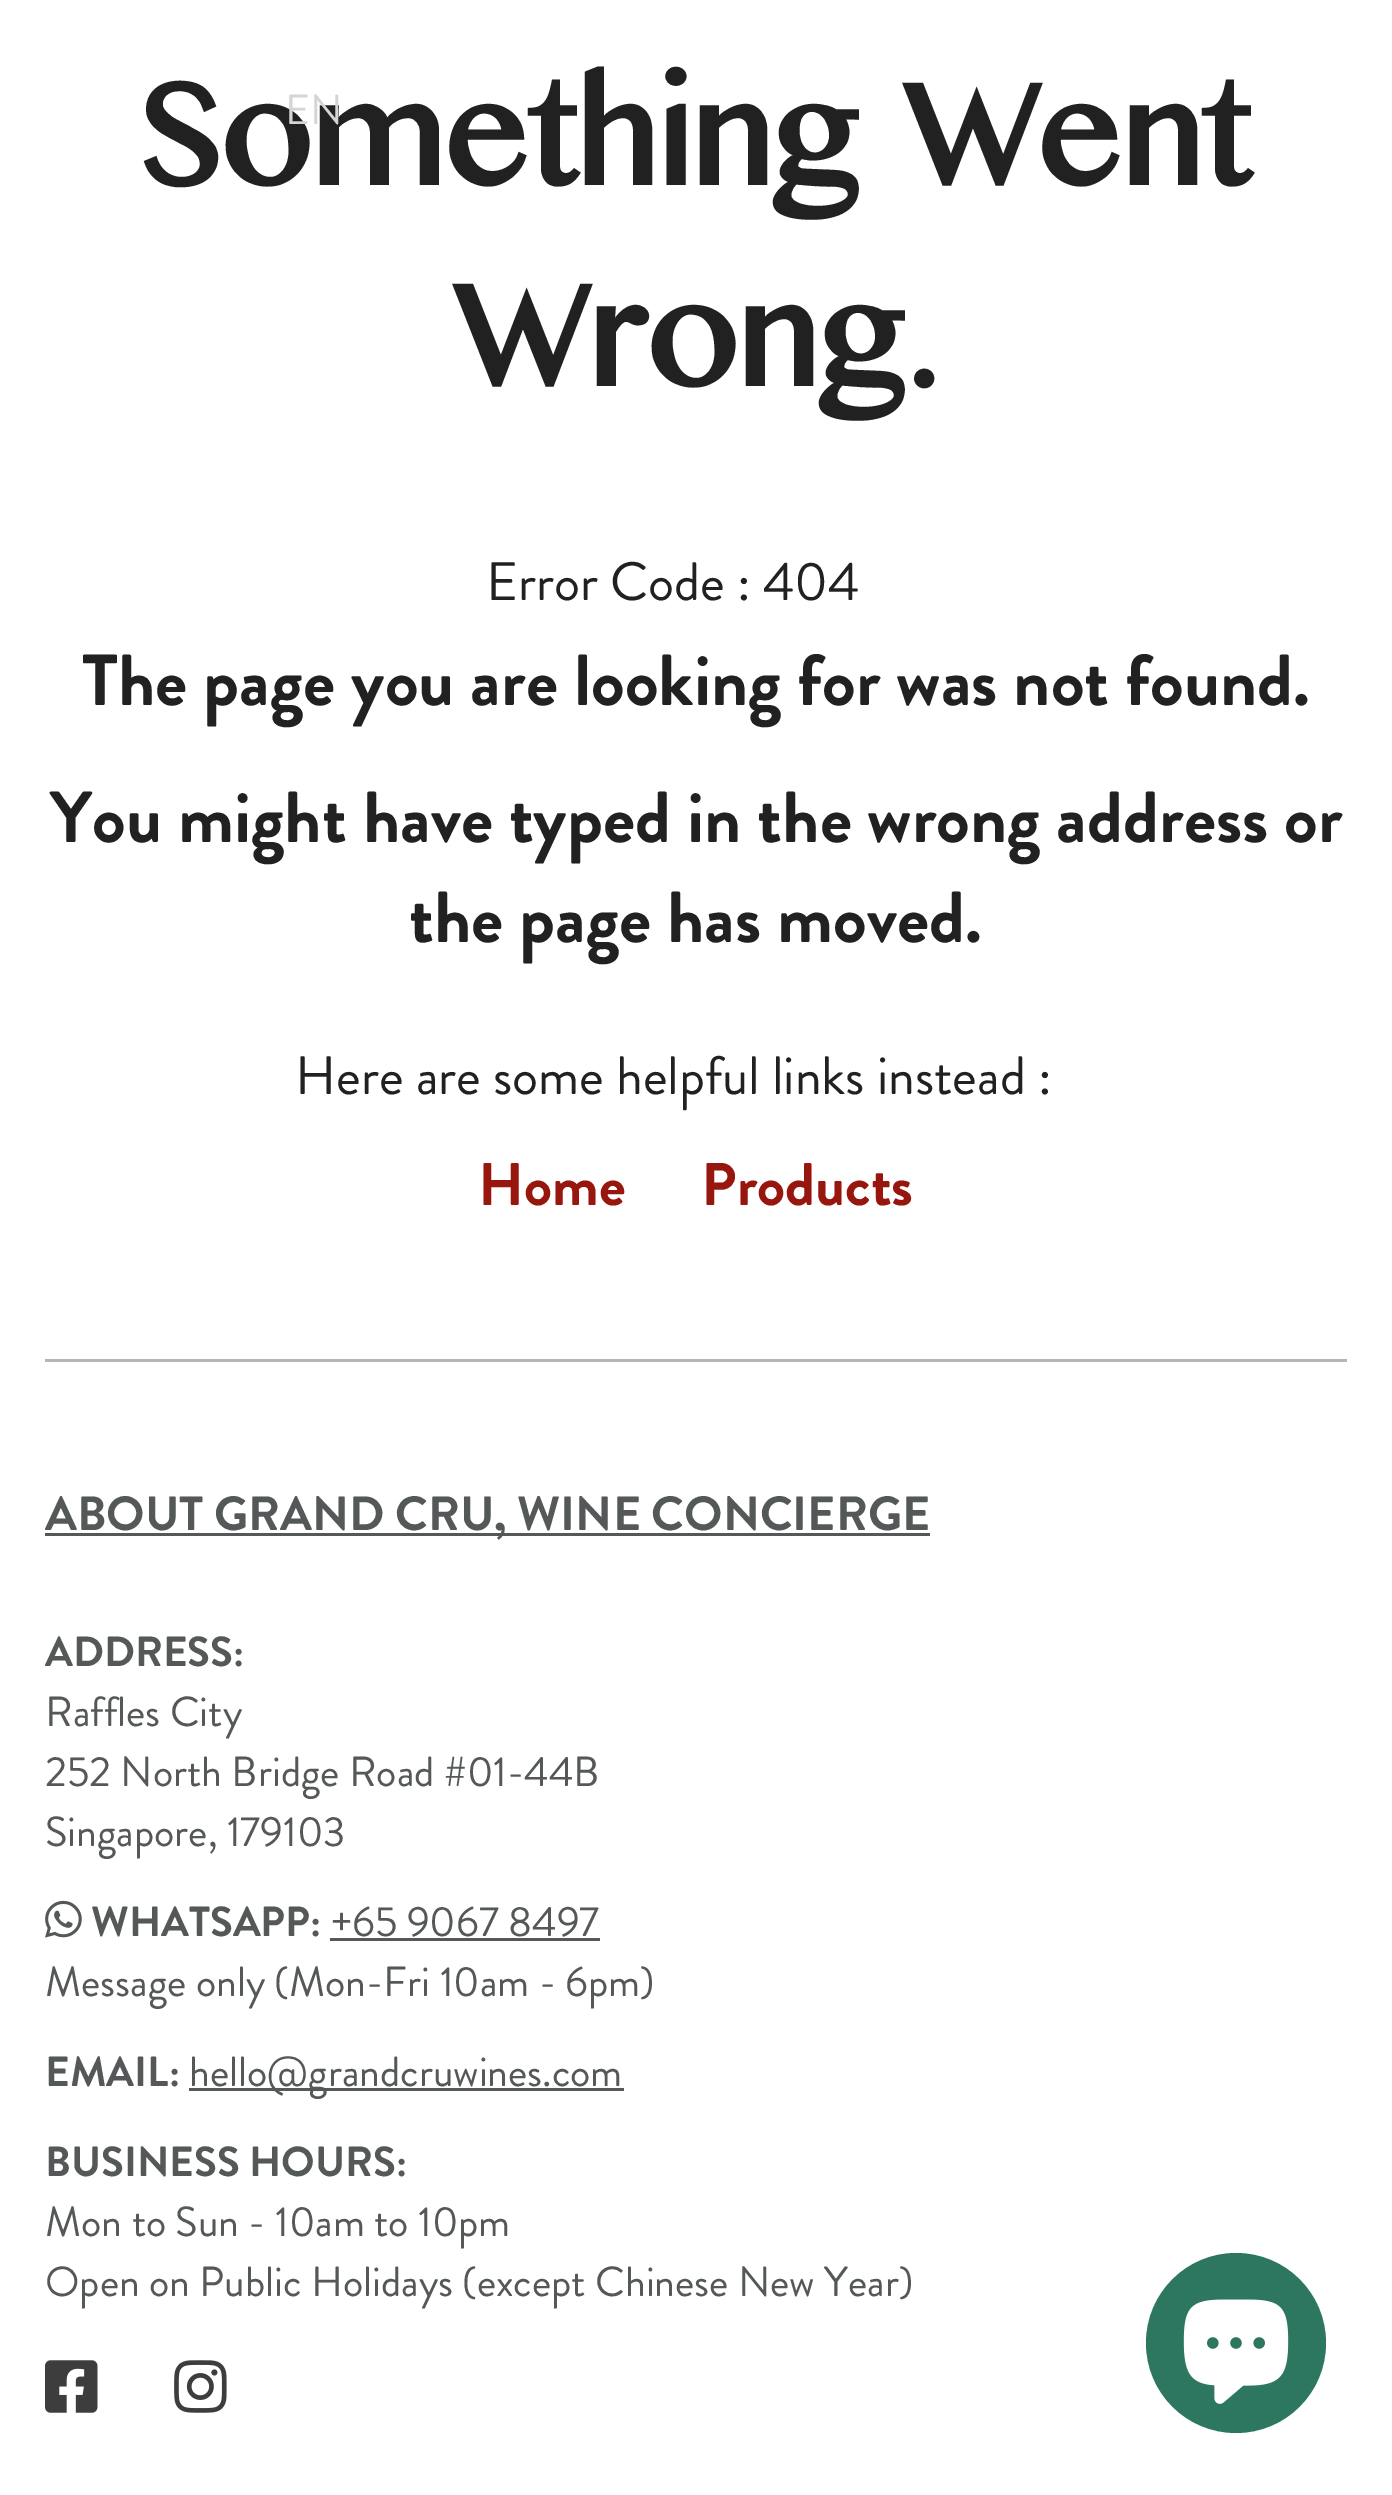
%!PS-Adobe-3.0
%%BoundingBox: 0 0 1392 2495
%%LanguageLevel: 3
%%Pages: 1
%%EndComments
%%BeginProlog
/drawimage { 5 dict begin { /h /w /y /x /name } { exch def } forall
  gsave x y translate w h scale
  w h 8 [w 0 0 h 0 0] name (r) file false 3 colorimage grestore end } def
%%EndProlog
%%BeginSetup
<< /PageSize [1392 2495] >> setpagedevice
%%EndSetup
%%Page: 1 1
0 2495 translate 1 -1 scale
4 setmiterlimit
1 setgray
0 0 1392 2495 rectfill
0.71 setgray
45 1359 1302 3 rectfill
0.329 0.345 0.349 setrgbcolor
45 1533 885 3 rectfill
(images/1.raw) 45 1900 37 38 drawimage
330 1938 270 3 rectfill
189 2088 435 3 rectfill
(images/2.raw) 45 2360 53 53 drawimage
(images/3.raw) 174 2360 53 53 drawimage
0.176 0.463 0.376 setrgbcolor
newpath 1236 2343 90 0 360 arc closepath fill
(images/4.raw) 1183 2299 106 105 drawimage
/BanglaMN-Bold [144 0 0 -144 0 0] selectfont
0.129 setgray
141 185 moveto (Something Went) show
453 386 moveto (Wrong.) show
/BrandonGrotesque-Regular [54 0 0 -54 0 0] selectfont
486 600 moveto (Error Code : 404) show
/BrandonGrotesque-Bold [72 0 0 -72 0 0] selectfont
82 705 moveto (The page you are looking for was not found.) show
50 842 moveto (You might have typed in the wrong address or) show
409 942 moveto (the page has moved.) show
/BrandonGrotesque-Regular [54 0 0 -54 0 0] selectfont
295 1094 moveto (Here are some helpful links instead :) show
/BrandonGrotesque-Bold [60 0 0 -60 0 0] selectfont
0.592 0.086 0.051 setrgbcolor
478 1205 moveto (Home) show
701 1205 moveto (Products) show
/BrandonGrotesque-Regular [42 0 0 -42 0 0] selectfont
0.835 setgray
285 124 moveto (EN) show
/BrandonGrotesque-Bold [48 0 0 -48 0 0] selectfont
0.329 0.345 0.349 setrgbcolor
45 1530 moveto (ABOUT GRAND CRU, WINE CONCIERGE) show
/BrandonGrotesque-Bold [42 0 0 -42 0 0] selectfont
45 1666 moveto (ADDRESS:) show
/BrandonGrotesque-Regular [42 0 0 -42 0 0] selectfont
45 1726 moveto (Raffles City) show
45 1786 moveto (252 North Bridge Road #01-44B) show
45 1846 moveto (Singapore, 179103) show
/BrandonGrotesque-Bold [42 0 0 -42 0 0] selectfont
91 1936 moveto (WHATSAPP:) show
/BrandonGrotesque-Regular [42 0 0 -42 0 0] selectfont
331 1936 moveto (+65 9067 8497) show
45 1996 moveto (Message only \(Mon-Fri 10am - 6pm\)) show
/BrandonGrotesque-Bold [42 0 0 -42 0 0] selectfont
45 2086 moveto (EMAIL:) show
/BrandonGrotesque-Regular [42 0 0 -42 0 0] selectfont
189 2086 moveto (hello@grandcruwines.com) show
/BrandonGrotesque-Bold [42 0 0 -42 0 0] selectfont
45 2176 moveto (BUSINESS HOURS:) show
/BrandonGrotesque-Regular [42 0 0 -42 0 0] selectfont
45 2236 moveto (Mon to Sun - 10am to 10pm) show
45 2296 moveto (Open on Public Holidays \(except Chinese New Year\)) show
showpage
%%EOF
